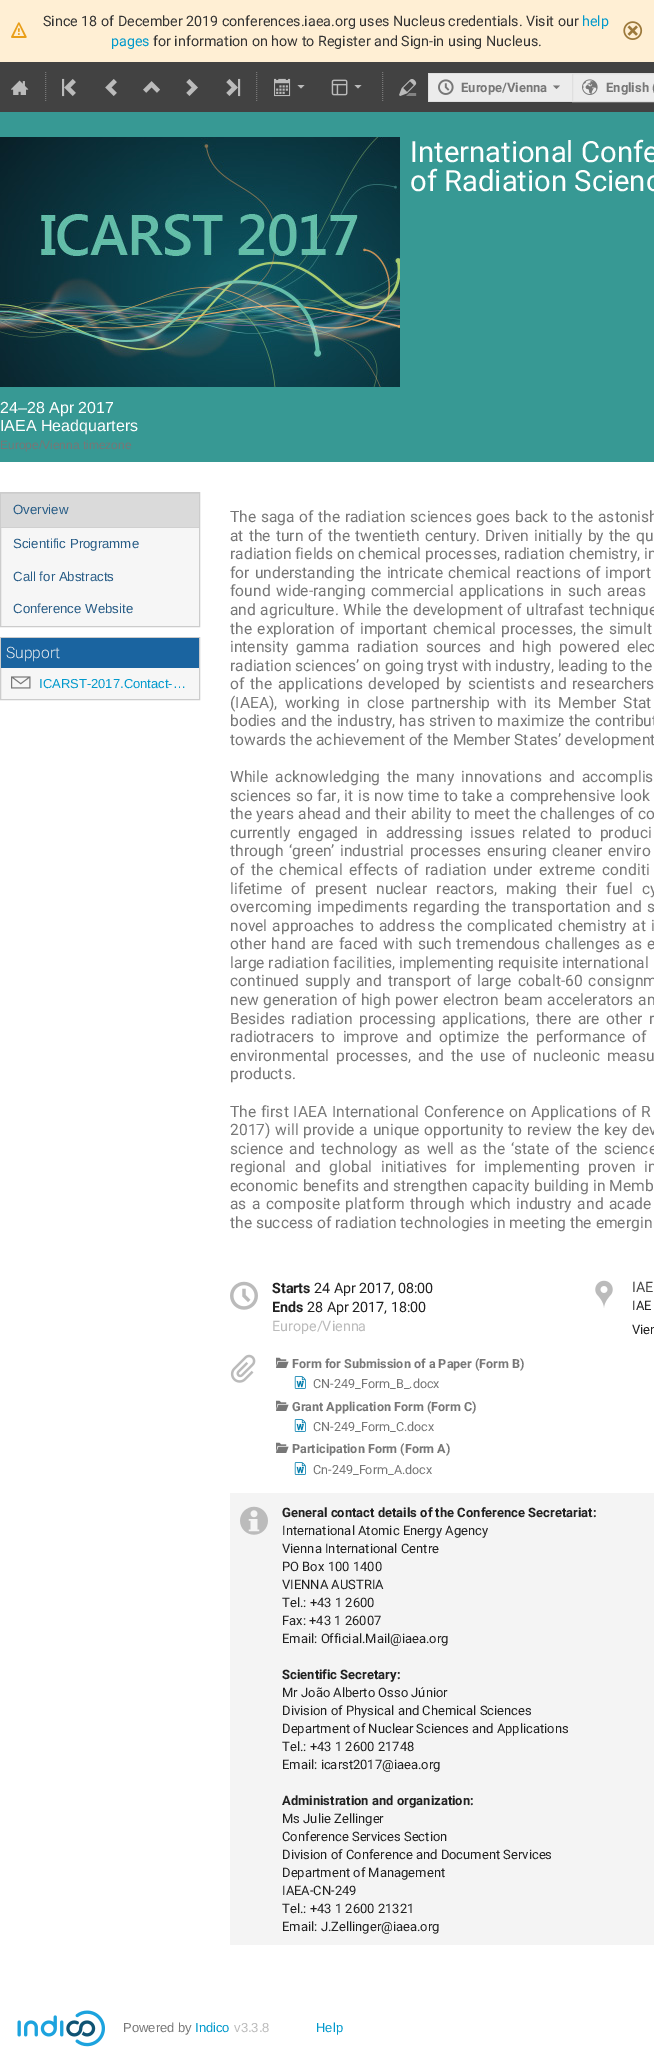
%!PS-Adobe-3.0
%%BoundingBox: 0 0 654 2058
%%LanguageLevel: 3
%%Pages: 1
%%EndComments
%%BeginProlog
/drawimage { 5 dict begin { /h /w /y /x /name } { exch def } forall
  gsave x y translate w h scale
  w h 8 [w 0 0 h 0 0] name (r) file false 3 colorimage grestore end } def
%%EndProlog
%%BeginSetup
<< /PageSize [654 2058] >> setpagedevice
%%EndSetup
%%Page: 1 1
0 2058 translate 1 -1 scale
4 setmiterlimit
1 setgray
0 0 654 2058 rectfill
1 0.937 0.831 setrgbcolor
0 0 654 62 rectfill
(images/1.raw) 11 22 16 16 drawimage
(images/2.raw) 623 21 20 19 drawimage
0.259 setgray
0 62 654 50 rectfill
(images/3.raw) 11 80 18 15 drawimage
0.467 setgray
[1 1] 0 setdash
newpath 45.5 72 moveto 45.5 102 lineto stroke
(images/4.raw) 62 78 14 19 drawimage
(images/5.raw) 105 79 12 17 drawimage
(images/6.raw) 143 81 17 12 drawimage
(images/7.raw) 186 79 12 17 drawimage
(images/8.raw) 226 78 15 19 drawimage
newpath 256.5 72 moveto 256.5 102 lineto stroke
(images/9.raw) 274 78 17 19 drawimage
0.733 setgray
newpath 297.5 85 moveto 301 88.5 lineto 304.5 85 lineto closepath fill
(images/10.raw) 331 79 17 17 drawimage
newpath 354.5 85 moveto 358 88.5 lineto 361.5 85 lineto closepath fill
0.467 setgray
newpath 382.5 72 moveto 382.5 102 lineto stroke
(images/11.raw) 399 79 18 17 drawimage
0.925 setgray
429 74 143 27 rectfill
0.875 setgray
428 73 144 1 rectfill
428 101 144 1 rectfill
428 73 1 29 rectfill
(images/12.raw) 438 79 16 16 drawimage
0.467 setgray
newpath 553 85.5 moveto 556.5 89 lineto 560 85.5 lineto closepath fill
0.925 setgray
newpath 572.5 73.5 moveto 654.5 73.5 lineto 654.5 101.5 lineto 572.5 101.5 lineto closepath gsave fill grestore
0.875 setgray
[] 0 setdash
stroke
(images/13.raw) 582 79 16 16 drawimage
0.216 0.6 0.58 setrgbcolor
0 112 654 350 rectfill
(images/14.raw) 0 137 400 250 drawimage
0.965 setgray
1 528 198 98 rectfill
0.8 setgray
0.5 492.5 199 134 rectstroke
0.855 setgray
1 494 198 33 rectfill
0.816 setgray
1 493 198 1 rectfill
1 527 198 1 rectfill
0.965 setgray
1 668 198 31 rectfill
0.8 setgray
0.5 637.5 199 62 rectstroke
0.102 0.392 0.627 setrgbcolor
1 638 198 30 rectfill
(images/15.raw) 11 676 20 13 drawimage
(images/16.raw) 230 1281 28 29 drawimage
(images/17.raw) 595 1280 18 28 drawimage
(images/18.raw) 230 1354 26 29 drawimage
(images/19.raw) 276 1357 13 11 drawimage
(images/20.raw) 294 1376 12 13 drawimage
(images/19.raw) 276 1400 13 11 drawimage
(images/20.raw) 294 1419 12 13 drawimage
(images/19.raw) 276 1442 13 11 drawimage
(images/20.raw) 294 1462 12 13 drawimage
0.957 setgray
230 1493 424 452 rectfill
(images/21.raw) 240 1506 28 29 drawimage
(images/22.raw) 17 2010 88 37 drawimage
/Roboto-Regular [14.3 0 0 -14.3 0 0] selectfont
0.2 setgray
43 26 moveto (Since 18 of December 2019 conferences.iaea.org uses Nucleus credentials. Visit our) show
0 0.6 0.8 setrgbcolor
582 26 moveto (help) show
111 46 moveto (pages) show
0.2 setgray
153 46 moveto (for information on how to Register and Sign-in using Nucleus.) show
/Roboto-Bold [13 0 0 -13 0 0] selectfont
0.467 setgray
461 92 moveto (Europe/Vienna) show
606 92 moveto (English \() show
/Roboto-Regular [29.25 0 0 -29.25 0 0] selectfont
1 setgray
410 162 moveto (International Confe) show
410 191 moveto (of Radiation Scienc) show
/LiberationSans-Regular [16 0 0 -16 0 0] selectfont
0 413 moveto (24–28 Apr 2017) show
0 431 moveto (IAEA Headquarters) show
/LiberationSans-Regular [12 0 0 -12 0 0] selectfont
0.467 setgray
0 449 moveto (Europe/Vienna timezone) show
/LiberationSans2-Regular [13.25 0 0 -13.25 0 0] selectfont
0.153 0.361 0.525 setrgbcolor
13 514 moveto (Overview) show
13 548 moveto (Scientific Programme) show
13 581 moveto (Call for Abstracts) show
13 613 moveto (Conference Website) show
/Roboto-Light [15.6 0 0 -15.6 0 0] selectfont
0.953 setgray
6 658 moveto (Support) show
/LiberationSans-Regular [13 0 0 -13 0 0] selectfont
0 0.6 0.8 setrgbcolor
39 688 moveto (ICARST-2017.Contact-…) show
/Roboto-Regular [15.6 0 0 -15.6 0 0] selectfont
0.467 setgray
230 522 moveto 0.75 0 32 (The saga of the radiation sciences goes back to the astonish) widthshow
230 541 moveto 1.25 0 32 (at the turn of the twentieth century. Driven initially by the qu) widthshow
230 559 moveto (radiation fields on chemical processes, radiation chemistry, in) show
230 578 moveto 1.25 0 32 (for understanding the intricate chemical reactions of import) widthshow
230 596 moveto 2 0 32 (found wide-ranging commercial applications in such areas) widthshow
230 615 moveto 0.75 0 32 (and agriculture. While the development of ultrafast technique) widthshow
230 634 moveto 1.5 0 32 (the exploration of important chemical processes, the simult) widthshow
230 652 moveto 3.75 0 32 (intensity gamma radiation sources and high powered elec) widthshow
230 671 moveto (radiation sciences’ on going tryst with industry, leading to the) show
230 689 moveto 2 0 32 (of the applications developed by scientists and researchers) widthshow
230 708 moveto 3.5 0 32 (\(IAEA\), working in close partnership with its Member Stat) widthshow
230 726 moveto 0.25 0 32 (bodies and the industry, has striven to maximize the contribut) widthshow
230 745 moveto (towards the achievement of the Member States’ development) show
230 782 moveto 3.25 0 32 (While acknowledging the many innovations and accomplis) widthshow
230 801 moveto 0.75 0 32 (sciences so far, it is now time to take a comprehensive look) widthshow
230 819 moveto 0.5 0 32 (the years ahead and their ability to meet the challenges of co) widthshow
230 838 moveto 3.75 0 32 (currently engaged in addressing issues related to produci) widthshow
230 856 moveto 1.5 0 32 (through ‘green’ industrial processes ensuring cleaner enviro) widthshow
230 875 moveto 2.75 0 32 (of the chemical effects of radiation under extreme conditi) widthshow
230 894 moveto 5.25 0 32 (lifetime of present nuclear reactors, making their fuel cy) widthshow
230 912 moveto 1.5 0 32 (overcoming impediments regarding the transportation and s) widthshow
230 931 moveto 1.5 0 32 (novel approaches to address the complicated chemistry at i) widthshow
230 949 moveto 1.5 0 32 (other hand are faced with such tremendous challenges as e) widthshow
230 968 moveto (large radiation facilities, implementing requisite international) show
230 986 moveto 2 0 32 (continued supply and transport of large cobalt-60 consignm) widthshow
230 1005 moveto 0.75 0 32 (new generation of high power electron beam accelerators an) widthshow
230 1024 moveto 2.5 0 32 (Besides radiation processing applications, there are other r) widthshow
230 1042 moveto 3.5 0 32 (radiotracers to improve and optimize the performance of) widthshow
230 1061 moveto 3.25 0 32 (environmental processes, and the use of nucleonic measu) widthshow
230 1079 moveto (products.) show
230 1117 moveto 1 0 32 (The first IAEA International Conference on Applications of R) widthshow
230 1135 moveto 1 0 32 (2017\) will provide a unique opportunity to review the key dev) widthshow
230 1154 moveto 2.25 0 32 (science and technology as well as the ‘state of the science) widthshow
230 1172 moveto 5 0 32 (regional and global initiatives for implementing proven in) widthshow
230 1191 moveto 0.25 0 32 (economic benefits and strengthen capacity building in Memb) widthshow
230 1209 moveto 1.75 0 32 (as a composite platform through which industry and acade) widthshow
230 1228 moveto (the success of radiation technologies in meeting the emergin) show
/Roboto-Bold [14.3 0 0 -14.3 0 0] selectfont
0.129 setgray
272 1293 moveto (Starts) show
/Roboto-Regular [14.3 0 0 -14.3 0 0] selectfont
314 1293 moveto (24 Apr 2017, 08:00) show
/Roboto-Bold [14.3 0 0 -14.3 0 0] selectfont
272 1312 moveto (Ends) show
/Roboto-Regular [14.3 0 0 -14.3 0 0] selectfont
307 1312 moveto (28 Apr 2017, 18:00) show
0.733 setgray
272 1331 moveto (Europe/Vienna) show
0.267 setgray
632 1292 moveto (IAE) show
/Roboto-Regular [13 0 0 -13 0 0] selectfont
0.129 setgray
632 1310 moveto (IAE) show
632 1334 moveto (Vien) show
/Roboto-Bold [12.6 0 0 -12.6 0 0] selectfont
0.467 setgray
292 1368 moveto (Form for Submission of a Paper \(Form B\)) show
/Roboto-Regular [12.6 0 0 -12.6 0 0] selectfont
313 1388 moveto (CN-249_Form_B_.docx) show
/Roboto-Bold [12.6 0 0 -12.6 0 0] selectfont
292 1411 moveto (Grant Application Form \(Form C\)) show
/Roboto-Regular [12.6 0 0 -12.6 0 0] selectfont
313 1431 moveto (CN-249_Form_C.docx) show
/Roboto-Bold [12.6 0 0 -12.6 0 0] selectfont
292 1453 moveto (Participation Form \(Form A\)) show
/Roboto-Regular [12.6 0 0 -12.6 0 0] selectfont
313 1474 moveto (Cn-249_Form_A.docx) show
/Roboto-Bold [13 0 0 -13 0 0] selectfont
0.129 setgray
282 1517 moveto (General contact details of the Conference Secretariat:) show
/Roboto-Regular [13 0 0 -13 0 0] selectfont
282 1535 moveto (International Atomic Energy Agency) show
282 1553 moveto (Vienna International Centre) show
282 1571 moveto (PO Box 100 1400) show
282 1589 moveto (VIENNA AUSTRIA) show
282 1607 moveto (Tel.: +43 1 2600) show
282 1625 moveto (Fax: +43 1 26007) show
282 1643 moveto (Email: Official.Mail@iaea.org) show
/Roboto-Bold [13 0 0 -13 0 0] selectfont
282 1679 moveto (Scientific Secretary:) show
/Roboto-Regular [13 0 0 -13 0 0] selectfont
282 1697 moveto (Mr João Alberto Osso Júnior) show
282 1715 moveto (Division of Physical and Chemical Sciences) show
282 1733 moveto (Department of Nuclear Sciences and Applications) show
282 1751 moveto (Tel.: +43 1 2600 21748) show
282 1769 moveto (Email: icarst2017@iaea.org) show
/Roboto-Bold [13 0 0 -13 0 0] selectfont
282 1805 moveto (Administration and organization:) show
/Roboto-Regular [13 0 0 -13 0 0] selectfont
282 1823 moveto (Ms Julie Zellinger) show
282 1841 moveto (Conference Services Section) show
282 1859 moveto (Division of Conference and Document Services) show
282 1877 moveto (Department of Management) show
282 1895 moveto (IAEA-CN-249) show
282 1913 moveto (Tel.: +43 1 2600 21321) show
282 1931 moveto (Email: J.Zellinger@iaea.org) show
/LiberationSans-Regular [13 0 0 -13 0 0] selectfont
0.467 setgray
123 2032 moveto (Powered by) show
0 0.6 0.8 setrgbcolor
195 2032 moveto (Indico) show
0.733 setgray
234 2032 moveto (v3.3.8) show
0 0.6 0.8 setrgbcolor
316 2032 moveto (Help) show
showpage
%%EOF
